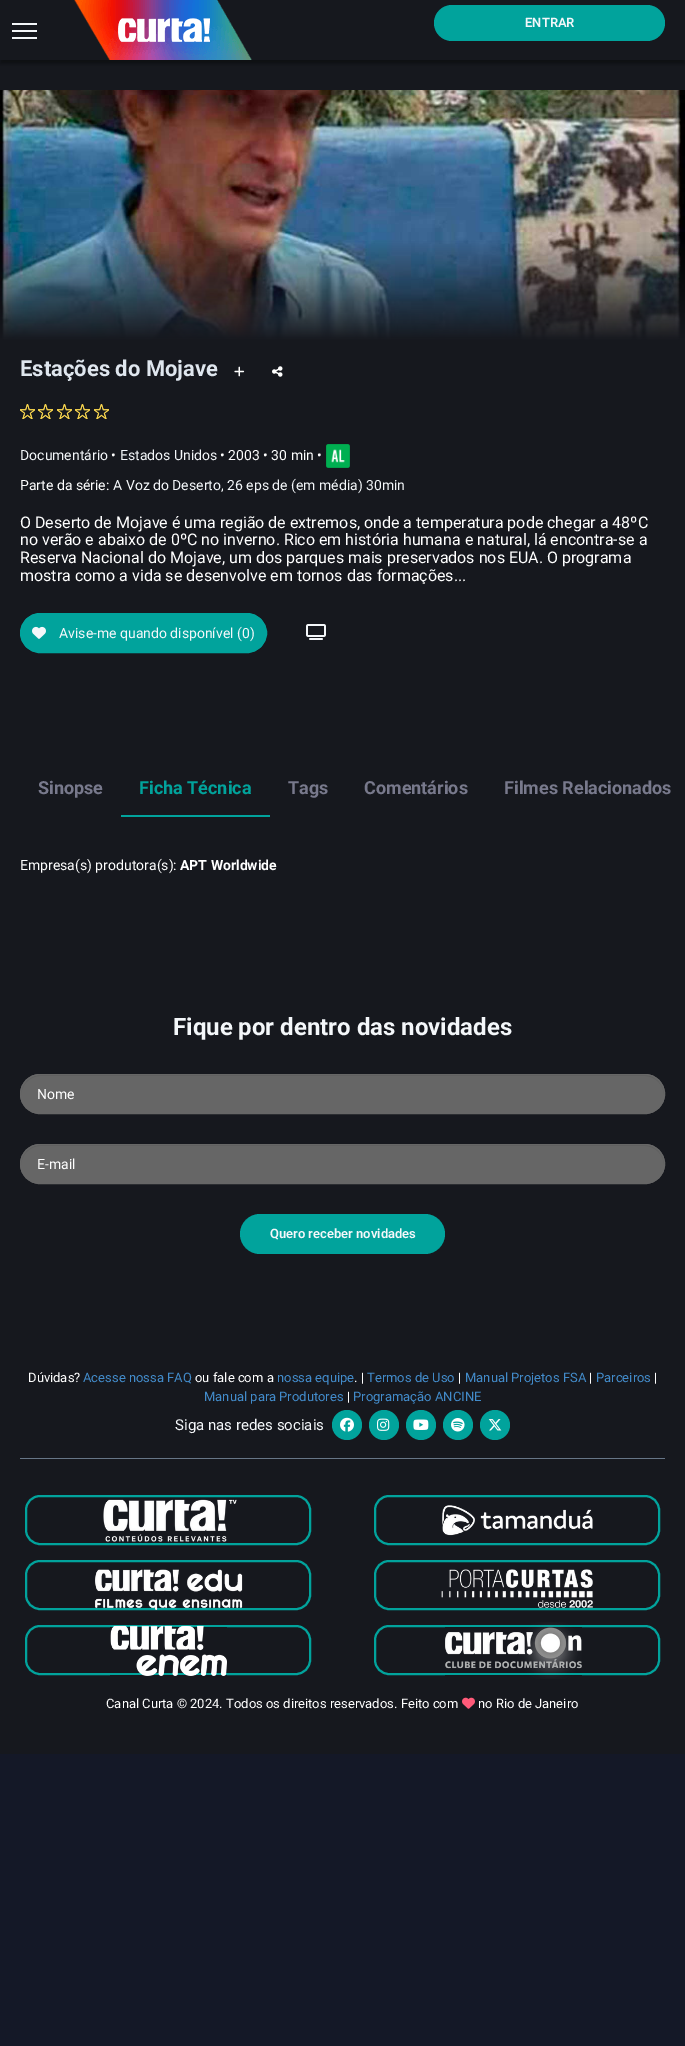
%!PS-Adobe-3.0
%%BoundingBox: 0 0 685 2046
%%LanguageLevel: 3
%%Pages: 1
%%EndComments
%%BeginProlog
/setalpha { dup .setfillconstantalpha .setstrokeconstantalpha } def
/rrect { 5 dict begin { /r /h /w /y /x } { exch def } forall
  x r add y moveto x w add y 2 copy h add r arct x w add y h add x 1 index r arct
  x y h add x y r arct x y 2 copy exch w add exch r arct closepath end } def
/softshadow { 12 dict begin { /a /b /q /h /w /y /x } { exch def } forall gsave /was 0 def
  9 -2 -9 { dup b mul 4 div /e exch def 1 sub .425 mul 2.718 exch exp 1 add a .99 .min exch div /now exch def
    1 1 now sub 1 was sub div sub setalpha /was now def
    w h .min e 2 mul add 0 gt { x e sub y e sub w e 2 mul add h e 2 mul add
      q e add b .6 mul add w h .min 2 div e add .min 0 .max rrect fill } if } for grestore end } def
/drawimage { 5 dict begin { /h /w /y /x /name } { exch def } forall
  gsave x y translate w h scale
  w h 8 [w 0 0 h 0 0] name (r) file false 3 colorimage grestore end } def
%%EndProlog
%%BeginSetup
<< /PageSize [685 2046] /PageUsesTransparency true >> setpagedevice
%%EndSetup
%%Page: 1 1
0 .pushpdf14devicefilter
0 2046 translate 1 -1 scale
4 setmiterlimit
0.078 0.094 0.153 setrgbcolor
0 0 685 2046 rectfill
0.086 0.094 0.118 setrgbcolor
0 0 685 1754 rectfill
gsave
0 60 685 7 rectclip
0 setgray
0 4 685 60 0 2 0.4 softshadow
grestore
(images/1.raw) 74 0 178 60 drawimage
0.004 0.639 0.612 setrgbcolor
434 5 231 36 18 rrect fill
0.957 0.969 0.98 setrgbcolor
12 23 25 2 rectfill
12 30 25 2 rectfill
12 37 25 2 rectfill
(images/2.raw) 0 90 685 250 drawimage
(images/3.raw) 234 366 11 11 drawimage
(images/4.raw) 272 366 11 11 drawimage
(images/5.raw) 20 404 15 15 drawimage
(images/6.raw) 20 404 15 15 drawimage
(images/5.raw) 38 404 15 15 drawimage
(images/6.raw) 38 404 15 15 drawimage
(images/5.raw) 57 404 15 15 drawimage
(images/6.raw) 57 404 15 15 drawimage
(images/5.raw) 75 404 15 15 drawimage
(images/6.raw) 75 404 15 15 drawimage
(images/5.raw) 94 404 15 15 drawimage
(images/6.raw) 94 404 15 15 drawimage
(images/7.raw) 326 444 24 24 drawimage
0.004 0.639 0.612 setrgbcolor
20.5 613.5 246 39 19.5 rrect gsave fill grestore
stroke
(images/8.raw) 32 626 14 13 drawimage
(images/9.raw) 306 624 20 16 drawimage
121 815 149 2 rectfill
0.4 setgray
20 1074 645 40 20 rrect fill
0.369 setgray
newpath 40 1076 moveto 645 1076 lineto 655 1076 664 1085 664 1095 curveto 664 1094 lineto 664 1084 655 1075 645 1075 curveto 40 1075 lineto 30 1075 21 1084 21 1094 curveto 21 1095 lineto 21 1085 30 1076 40 1076 curveto closepath fill
0.4 setgray
20.5 1074.5 644 39 19.5 rrect stroke
20 1144 645 40 20 rrect fill
0.369 setgray
newpath 40 1146 moveto 645 1146 lineto 655 1146 664 1155 664 1165 curveto 664 1164 lineto 664 1154 655 1145 645 1145 curveto 40 1145 lineto 30 1145 21 1154 21 1164 curveto 21 1165 lineto 21 1155 30 1146 40 1146 curveto closepath fill
0.4 setgray
20.5 1144.5 644 39 19.5 rrect stroke
0.004 0.639 0.612 setrgbcolor
240 1214 205 40 20 rrect fill
0.4 0.459 0.529 setrgbcolor
20 1458 645 1 rectfill
0.004 0.639 0.612 setrgbcolor
newpath 347 1425 15 0 360 arc closepath fill
(images/10.raw) 340 1417 14 15 drawimage
newpath 384 1425 15 0 360 arc closepath fill
(images/11.raw) 377 1418 13 13 drawimage
newpath 421 1425 15 0 360 arc closepath fill
(images/12.raw) 413 1419 16 11 drawimage
newpath 458 1425 15 0 360 arc closepath fill
(images/13.raw) 451 1418 14 14 drawimage
newpath 495 1425 15 0 360 arc closepath fill
(images/14.raw) 488 1419 14 12 drawimage
2 setlinewidth
26 1496 284 48 14 rrect stroke
(images/15.raw) 103 1499 134 43 drawimage
375 1496 284 48 14 rrect stroke
(images/16.raw) 442 1505 151 31 drawimage
26 1561 284 48 14 rrect stroke
(images/17.raw) 95 1569 148 41 drawimage
375 1561 284 48 14 rrect stroke
(images/18.raw) 441 1569 152 39 drawimage
26 1626 284 48 14 rrect stroke
(images/19.raw) 110 1625 117 51 drawimage
375 1626 284 48 14 rrect stroke
(images/20.raw) 445 1622 137 57 drawimage
(images/21.raw) 462 1697 13 12 drawimage
/Roboto-SemiBold [13 0 0 -13 0 0] selectfont
0.957 0.969 0.98 setrgbcolor
525 27 moveto (ENTRAR) show
/Roboto-Bold [22 0 0 -22 0 0] selectfont
0.875 0.902 0.933 setrgbcolor
20 376 moveto (Estações do Mojave) show
/Roboto-Regular [14 0 0 -14 0 0] selectfont
0.957 0.969 0.98 setrgbcolor
20 460 moveto (Documentário) show
1 setgray
111 460 moveto (•) show
0.957 0.969 0.98 setrgbcolor
120 460 moveto (Estados Unidos) show
1 setgray
220 460 moveto (• 2003 • 30 min •) show
20 490 moveto (Parte da série:) show
0.957 0.969 0.98 setrgbcolor
113 490 moveto (A Voz do Deserto, 26 eps de \(em média\) 30min) show
/Roboto-Regular [16 0 0 -16 0 0] selectfont
1 setgray
20 528 moveto (O Deserto de Mojave é uma região de extremos, onde a temperatura pode chegar a 48ºC) show
20 545 moveto (no verão e abaixo de 0ºC no inverno. Rico em história humana e natural, lá encontra-se a) show
20 563 moveto (Reserva Nacional do Mojave, um dos parques mais preservados nos EUA. O programa) show
gsave
20 514 645 70 rectclip
20 581 moveto (mostra como a vida se desenvolve em tornos das formações) show
grestore
454 581 moveto (...) show
/Roboto-Regular [14 0 0 -14 0 0] selectfont
0.957 0.969 0.98 setrgbcolor
59 638 moveto (Avise-me quando disponível \(0\)) show
/Roboto-Bold [18 0 0 -18 0 0] selectfont
0.471 0.475 0.549 setrgbcolor
38 794 moveto (Sinopse) show
0.004 0.639 0.612 setrgbcolor
139 794 moveto (Ficha Técnica) show
0.471 0.475 0.549 setrgbcolor
288 794 moveto (Tags) show
364 794 moveto (Comentários) show
504 794 moveto (Filmes Relacionados) show
/Roboto-Regular [14 0 0 -14 0 0] selectfont
1 setgray
20 870 moveto (Empresa\(s\) produtora\(s\):) show
/Roboto-Bold [14 0 0 -14 0 0] selectfont
180 870 moveto (APT Worldwide) show
/Roboto-Bold [24 0 0 -24 0 0] selectfont
0.957 0.969 0.98 setrgbcolor
173 1035 moveto (Fique por dentro das novidades) show
/Roboto-Regular [14 0 0 -14 0 0] selectfont
1 setgray
37 1099 moveto (Nome) show
37 1169 moveto (E-mail) show
/Roboto-SemiBold [13 0 0 -13 0 0] selectfont
0.957 0.969 0.98 setrgbcolor
270 1238 moveto (Quero receber novidades) show
/Roboto-Regular [13 0 0 -13 0 0] selectfont
1 setgray
28 1382 moveto (Dúvidas?) show
0.259 0.545 0.792 setrgbcolor
83 1382 moveto (Acesse nossa FAQ) show
1 setgray
195 1382 moveto (ou fale com a) show
0.259 0.545 0.792 setrgbcolor
277 1382 moveto (nossa equipe) show
1 setgray
354 1382 moveto (. |) show
0.259 0.545 0.792 setrgbcolor
367 1382 moveto (Termos de Uso) show
1 setgray
458 1382 moveto (|) show
0.259 0.545 0.792 setrgbcolor
465 1382 moveto (Manual Projetos FSA) show
1 setgray
589 1382 moveto (|) show
0.259 0.545 0.792 setrgbcolor
596 1382 moveto (Parceiros) show
1 setgray
654 1382 moveto (|) show
0.259 0.545 0.792 setrgbcolor
204 1401 moveto (Manual para Produtores) show
1 setgray
347 1401 moveto (|) show
0.259 0.545 0.792 setrgbcolor
353 1401 moveto (Programação ANCINE) show
/Roboto-Regular [15 0 0 -15 0 0] selectfont
0.957 0.969 0.98 setrgbcolor
175 1430 moveto (Siga nas redes sociais) show
/Roboto-Regular [13 0 0 -13 0 0] selectfont
1 setgray
106 1708 moveto (Canal Curta © 2024. Todos os direitos reservados. Feito com) show
478 1708 moveto (no Rio de Janeiro) show
.poppdf14devicefilter showpage
%%EOF
